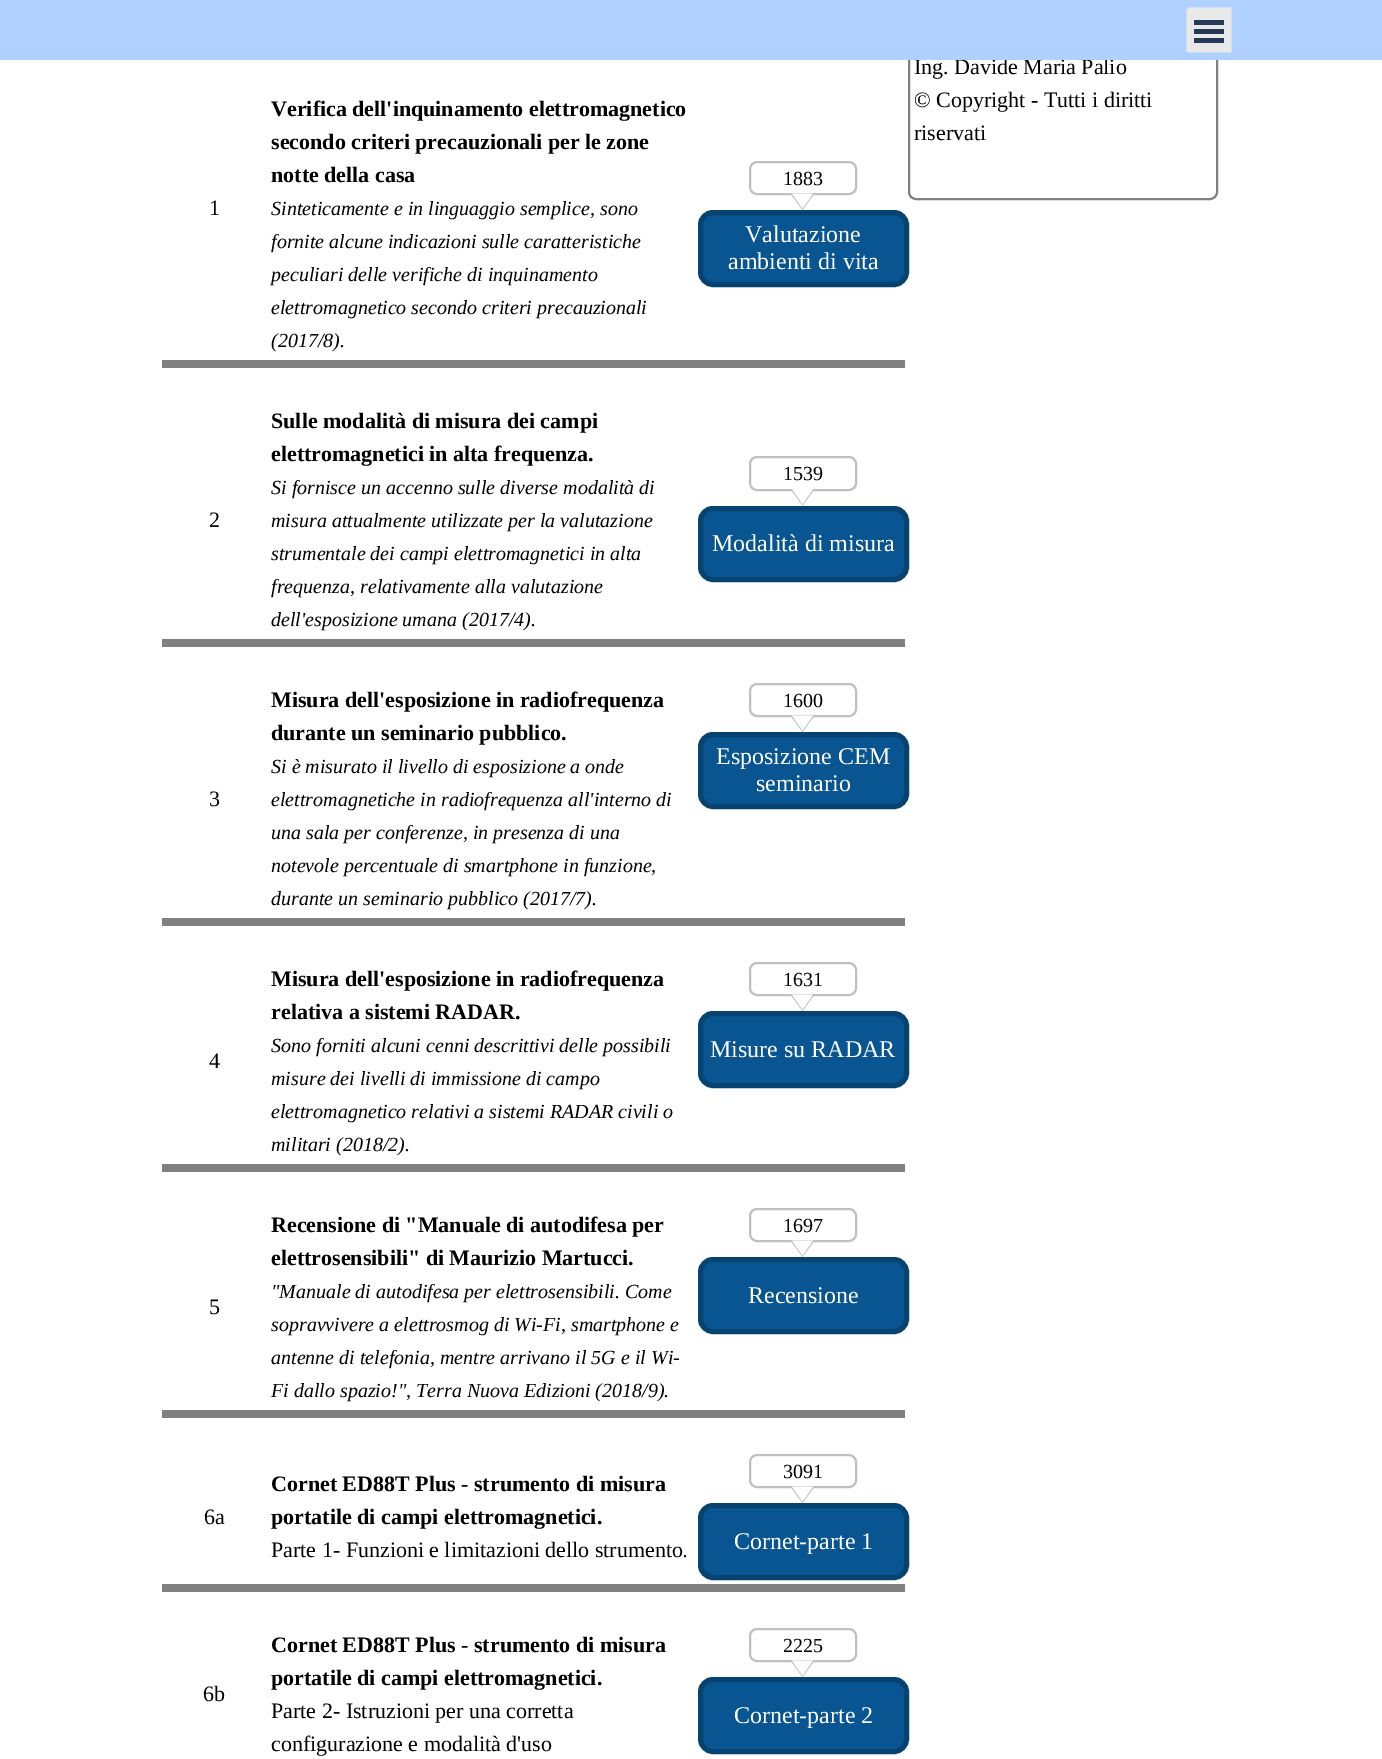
%!PS-Adobe-3.0
%%BoundingBox: 0 0 1382 1759
%%LanguageLevel: 3
%%Pages: 1
%%EndComments
%%BeginProlog
/rrect { 5 dict begin { /r /h /w /y /x } { exch def } forall
  x r add y moveto x w add y 2 copy h add r arct x w add y h add x 1 index r arct
  x y h add x y r arct x y 2 copy exch w add exch r arct closepath end } def
/drawimage { 5 dict begin { /h /w /y /x /name } { exch def } forall
  gsave x y translate w h scale
  w h 8 [w 0 0 h 0 0] name (r) file false 3 colorimage grestore end } def
%%EndProlog
%%BeginSetup
<< /PageSize [1382 1759] >> setpagedevice
%%EndSetup
%%Page: 1 1
0 1759 translate 1 -1 scale
4 setmiterlimit
1 setgray
0 0 1382 1759 rectfill
0.753 setgray
2 setlinewidth
750 162 106 32 7 rrect stroke
newpath 790.5 193.5 moveto 814.5 193.5 lineto 802.5 210 lineto closepath fill
1 setgray
newpath 792 193.5 moveto 813 193.5 lineto 802.5 208.5 lineto closepath fill
0.031 0.333 0.569 setrgbcolor
700.5 212.5 206 72 12.5 rrect gsave fill grestore
0.024 0.263 0.443 setrgbcolor
5 setlinewidth
stroke
0.502 setgray
2 setlinewidth
909 -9 308 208 7 rrect stroke
162 360 743 8 rectfill
0.753 setgray
750 457 106 33 7 rrect stroke
newpath 790.5 489 moveto 814.5 489 lineto 802.5 505.5 lineto closepath fill
1 setgray
newpath 792 489 moveto 813 489 lineto 802.5 504 lineto closepath fill
0.031 0.333 0.569 setrgbcolor
700.5 508.5 206 71 12.5 rrect gsave fill grestore
0.024 0.263 0.443 setrgbcolor
5 setlinewidth
stroke
0.753 setgray
2 setlinewidth
750 684 106 32 7 rrect stroke
newpath 790.5 715.5 moveto 814.5 715.5 lineto 802.5 732 lineto closepath fill
1 setgray
newpath 792 715.5 moveto 813 715.5 lineto 802.5 730.5 lineto closepath fill
0.031 0.333 0.569 setrgbcolor
700.5 734.5 206 72 12.5 rrect gsave fill grestore
0.024 0.263 0.443 setrgbcolor
5 setlinewidth
stroke
0.502 setgray
162 639 743 8 rectfill
0.753 setgray
2 setlinewidth
750 963 106 32 7 rrect stroke
newpath 790.5 994.5 moveto 814.5 994.5 lineto 802.5 1011 lineto closepath fill
1 setgray
newpath 792 994.5 moveto 813 994.5 lineto 802.5 1009.5 lineto closepath fill
0.031 0.333 0.569 setrgbcolor
700.5 1013.5 206 72 12.5 rrect gsave fill grestore
0.024 0.263 0.443 setrgbcolor
5 setlinewidth
stroke
0.502 setgray
162 918 743 8 rectfill
0.753 setgray
2 setlinewidth
750 1209 106 32 7 rrect stroke
newpath 790.5 1240.5 moveto 814.5 1240.5 lineto 802.5 1257 lineto closepath fill
1 setgray
newpath 792 1240.5 moveto 813 1240.5 lineto 802.5 1255.5 lineto closepath fill
0.031 0.333 0.569 setrgbcolor
700.5 1259.5 206 72 12.5 rrect gsave fill grestore
0.024 0.263 0.443 setrgbcolor
5 setlinewidth
stroke
0.502 setgray
162 1164 743 8 rectfill
162 1410 743 8 rectfill
0.753 setgray
2 setlinewidth
750 1455 106 32 7 rrect stroke
newpath 790.5 1486.5 moveto 814.5 1486.5 lineto 802.5 1503 lineto closepath fill
1 setgray
newpath 792 1486.5 moveto 813 1486.5 lineto 802.5 1501.5 lineto closepath fill
0.031 0.333 0.569 setrgbcolor
700.5 1505.5 206 72 12.5 rrect gsave fill grestore
0.024 0.263 0.443 setrgbcolor
5 setlinewidth
stroke
0.502 setgray
162 1584 743 8 rectfill
0.753 setgray
2 setlinewidth
750 1629 106 32 7 rrect stroke
newpath 790.5 1660.5 moveto 814.5 1660.5 lineto 802.5 1677 lineto closepath fill
1 setgray
newpath 792 1660.5 moveto 813 1660.5 lineto 802.5 1675.5 lineto closepath fill
0.031 0.333 0.569 setrgbcolor
700.5 1679.5 206 72 12.5 rrect gsave fill grestore
0.024 0.263 0.443 setrgbcolor
5 setlinewidth
stroke
/LiberationSerif-Regular [22 0 0 -22 0 0] selectfont
0 setgray
209 215 moveto (1) show
/LiberationSerif-Bold [22 0 0 -22 0 0] selectfont
271 116 moveto (Verifica dell'inquinamento elettromagnetico) show
271 149 moveto (secondo criteri precauzionali per le zone) show
271 182 moveto (notte della casa) show
/LiberationSerif-Italic [20 0 0 -20 0 0] selectfont
271 215 moveto (Sinteticamente e in linguaggio semplice, sono) show
271 248 moveto (fornite alcune indicazioni sulle caratteristiche) show
271 281 moveto (peculiari delle verifiche di inquinamento) show
271 314 moveto (elettromagnetico secondo criteri precauzionali) show
271 347 moveto (\(2017/8\).) show
/LiberationSerif-Regular [20 0 0 -20 0 0] selectfont
783 185 moveto (1883) show
/LiberationSerif-Regular [24 0 0 -24 0 0] selectfont
1 setgray
745 242 moveto (Valutazione) show
728 269 moveto (ambienti di vita) show
/LiberationSerif-Regular [22 0 0 -22 0 0] selectfont
0 setgray
914 74 moveto (Ing. Davide Maria Palio) show
0.69 0.82 1 setrgbcolor
0 0 1382 60 rectfill
(images/1.raw) 1186 7 46 46 drawimage
0.145 0.227 0.345 setrgbcolor
1194 38 30 5 rectfill
1194 29 30 5 rectfill
1194 20 30 5 rectfill
0 setgray
914 107 moveto (© Copyright - Tutti i diritti) show
914 140 moveto (riservati) show
209 527 moveto (2) show
/LiberationSerif-Bold [22 0 0 -22 0 0] selectfont
271 428 moveto (Sulle modalità di misura dei campi) show
271 461 moveto (elettromagnetici in alta frequenza.) show
/LiberationSerif-Italic [20 0 0 -20 0 0] selectfont
271 494 moveto (Si fornisce un accenno sulle diverse modalità di) show
271 527 moveto (misura attualmente utilizzate per la valutazione) show
271 560 moveto (strumentale dei campi elettromagnetici in alta) show
271 593 moveto (frequenza, relativamente alla valutazione) show
271 626 moveto (dell'esposizione umana \(2017/4\).) show
/LiberationSerif-Regular [20 0 0 -20 0 0] selectfont
783 480 moveto (1539) show
/LiberationSerif-Regular [24 0 0 -24 0 0] selectfont
1 setgray
712 551 moveto (Modalità di misura) show
/LiberationSerif-Bold [22 0 0 -22 0 0] selectfont
0 setgray
271 707 moveto (Misura dell'esposizione in radiofrequenza) show
271 740 moveto (durante un seminario pubblico.) show
/LiberationSerif-Italic [20 0 0 -20 0 0] selectfont
271 773 moveto (Si è misurato il livello di esposizione a onde) show
271 806 moveto (elettromagnetiche in radiofrequenza all'interno di) show
271 839 moveto (una sala per conferenze, in presenza di una) show
271 872 moveto (notevole percentuale di smartphone in funzione,) show
271 905 moveto (durante un seminario pubblico \(2017/7\).) show
/LiberationSerif-Regular [20 0 0 -20 0 0] selectfont
783 707 moveto (1600) show
/LiberationSerif-Regular [24 0 0 -24 0 0] selectfont
1 setgray
716 764 moveto (Esposizione CEM) show
756 791 moveto (seminario) show
/LiberationSerif-Regular [22 0 0 -22 0 0] selectfont
0 setgray
209 806 moveto (3) show
/LiberationSerif-Bold [22 0 0 -22 0 0] selectfont
271 986 moveto (Misura dell'esposizione in radiofrequenza) show
271 1019 moveto (relativa a sistemi RADAR.) show
/LiberationSerif-Italic [20 0 0 -20 0 0] selectfont
271 1052 moveto (Sono forniti alcuni cenni descrittivi delle possibili) show
271 1085 moveto (misure dei livelli di immissione di campo) show
271 1118 moveto (elettromagnetico relativi a sistemi RADAR civili o) show
271 1151 moveto (militari \(2018/2\).) show
/LiberationSerif-Regular [20 0 0 -20 0 0] selectfont
783 986 moveto (1631) show
/LiberationSerif-Regular [24 0 0 -24 0 0] selectfont
1 setgray
710 1057 moveto (Misure su RADAR) show
/LiberationSerif-Regular [22 0 0 -22 0 0] selectfont
0 setgray
209 1068 moveto (4) show
/LiberationSerif-Bold [22 0 0 -22 0 0] selectfont
271 1232 moveto (Recensione di "Manuale di autodifesa per) show
271 1265 moveto (elettrosensibili" di Maurizio Martucci.) show
/LiberationSerif-Italic [20 0 0 -20 0 0] selectfont
271 1298 moveto ("Manuale di autodifesa per elettrosensibili. Come) show
271 1331 moveto (sopravvivere a elettrosmog di Wi-Fi, smartphone e) show
271 1364 moveto (antenne di telefonia, mentre arrivano il 5G e il Wi-) show
271 1397 moveto (Fi dallo spazio!", Terra Nuova Edizioni \(2018/9\).) show
/LiberationSerif-Regular [20 0 0 -20 0 0] selectfont
783 1232 moveto (1697) show
/LiberationSerif-Regular [24 0 0 -24 0 0] selectfont
1 setgray
748 1303 moveto (Recensione) show
/LiberationSerif-Regular [22 0 0 -22 0 0] selectfont
0 setgray
209 1314 moveto (5) show
204 1524 moveto (6a) show
/LiberationSerif-Bold [22 0 0 -22 0 0] selectfont
271 1491 moveto (Cornet ED88T Plus - strumento di misura) show
271 1524 moveto (portatile di campi elettromagnetici.) show
/LiberationSerif-Regular [22 0 0 -22 0 0] selectfont
271 1557 moveto (Parte 1- Funzioni e limitazioni dello strumento) show
/LiberationSerif-Italic [20 0 0 -20 0 0] selectfont
683 1557 moveto (.) show
/LiberationSerif-Regular [20 0 0 -20 0 0] selectfont
783 1478 moveto (3091) show
/LiberationSerif-Regular [24 0 0 -24 0 0] selectfont
1 setgray
734 1549 moveto (Cornet-parte 1) show
/LiberationSerif-Regular [22 0 0 -22 0 0] selectfont
0 setgray
203 1701 moveto (6b) show
/LiberationSerif-Bold [22 0 0 -22 0 0] selectfont
271 1652 moveto (Cornet ED88T Plus - strumento di misura) show
271 1685 moveto (portatile di campi elettromagnetici.) show
/LiberationSerif-Regular [22 0 0 -22 0 0] selectfont
271 1718 moveto (Parte 2- Istruzioni per una corretta) show
271 1751 moveto (configurazione e modalità d'uso) show
/LiberationSerif-Regular [20 0 0 -20 0 0] selectfont
783 1652 moveto (2225) show
/LiberationSerif-Regular [24 0 0 -24 0 0] selectfont
1 setgray
734 1723 moveto (Cornet-parte 2) show
showpage
%%EOF
